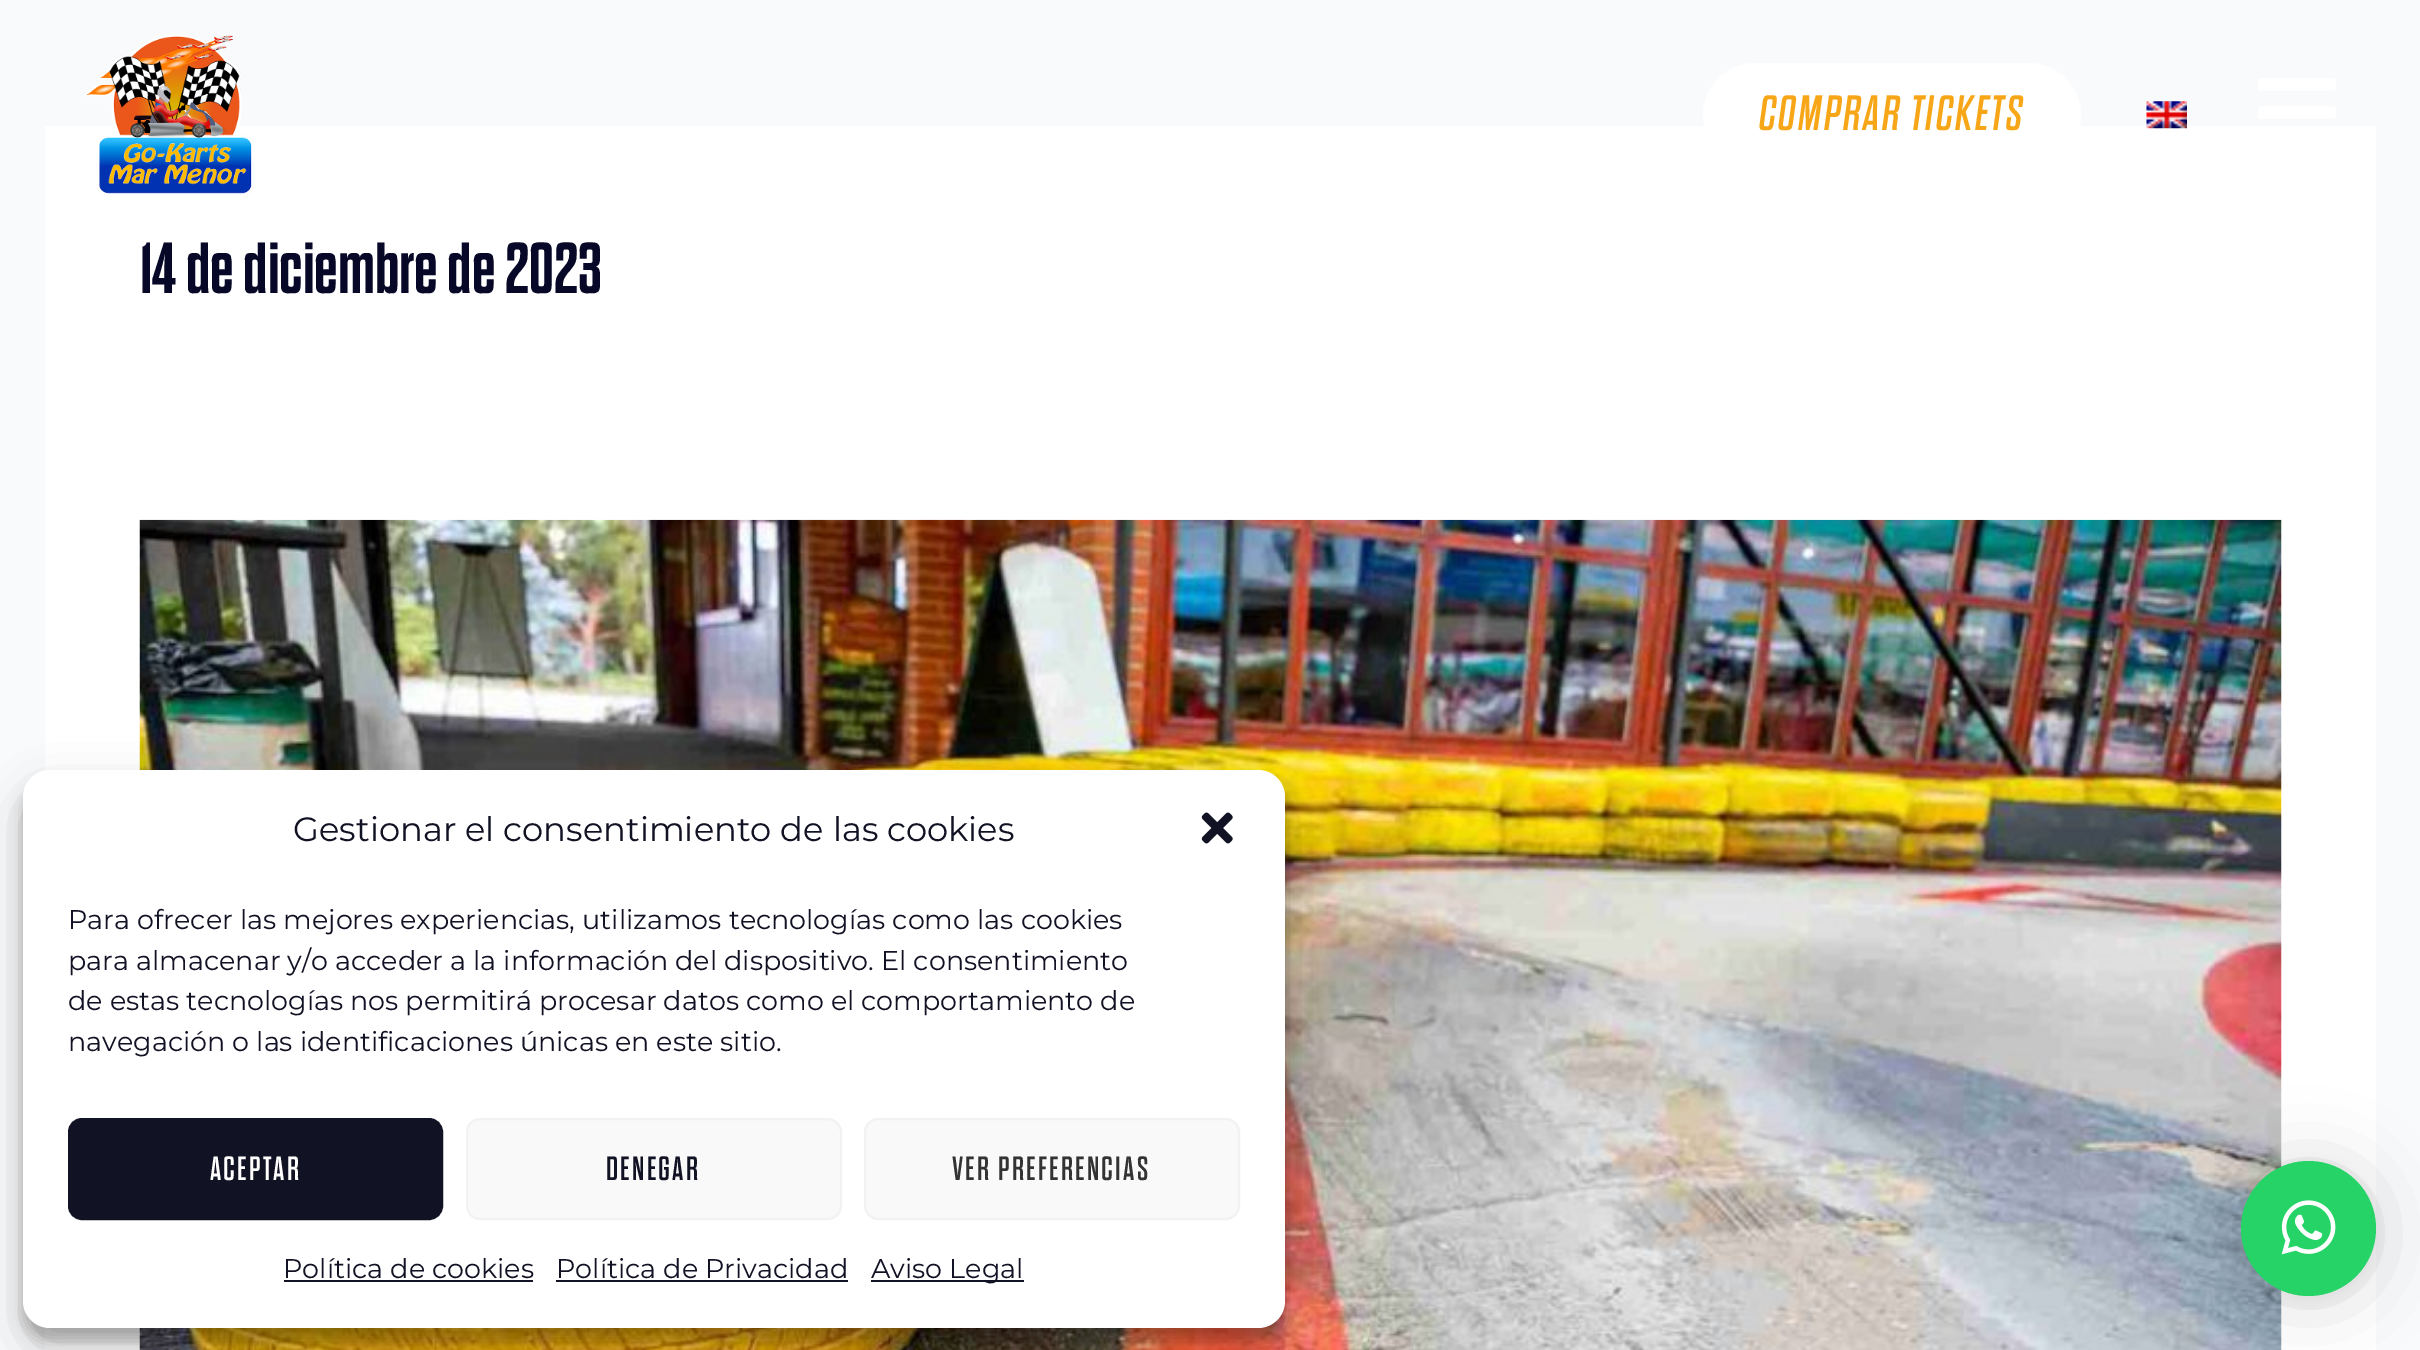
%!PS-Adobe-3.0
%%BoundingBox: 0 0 2420 1350
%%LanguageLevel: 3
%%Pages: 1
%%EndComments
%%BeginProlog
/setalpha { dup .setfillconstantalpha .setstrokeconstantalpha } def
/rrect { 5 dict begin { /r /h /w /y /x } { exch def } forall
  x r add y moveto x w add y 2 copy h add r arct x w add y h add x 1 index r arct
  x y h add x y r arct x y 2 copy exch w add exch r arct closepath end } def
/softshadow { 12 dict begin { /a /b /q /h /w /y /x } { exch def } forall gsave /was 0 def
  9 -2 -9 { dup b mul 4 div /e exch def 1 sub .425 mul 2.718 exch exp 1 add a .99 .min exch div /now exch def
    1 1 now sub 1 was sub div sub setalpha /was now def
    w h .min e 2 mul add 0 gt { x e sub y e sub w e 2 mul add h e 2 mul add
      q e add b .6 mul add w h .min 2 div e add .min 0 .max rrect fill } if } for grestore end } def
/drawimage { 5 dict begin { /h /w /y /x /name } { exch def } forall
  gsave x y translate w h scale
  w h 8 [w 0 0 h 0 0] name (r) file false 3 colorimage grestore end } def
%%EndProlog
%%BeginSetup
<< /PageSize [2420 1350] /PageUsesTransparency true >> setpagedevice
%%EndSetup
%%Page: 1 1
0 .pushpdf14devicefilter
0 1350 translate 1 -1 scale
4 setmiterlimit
0.976 0.98 0.984 setrgbcolor
0 0 2420 1350 rectfill
1 setgray
45 126 2331 1224 rectfill
(images/1.raw) 83 34 171 162 drawimage
1703 63 378 104 52 rrect fill
(images/2.raw) 2146 101 41 28 drawimage
(images/3.raw) 2258 78 78 41 drawimage
(images/4.raw) 139 519 2143 831 drawimage
0 setgray
23 783 1262 558 27 7 0.23 softshadow
23 792 1262 558 27 22.5 0.19 softshadow
1 setgray
23 770 1262 558 27 rrect fill
(images/5.raw) 1201 812 32 32 drawimage
0.071 0.071 0.145 setrgbcolor
69 1119 373 100 13 rrect gsave fill grestore
2 setlinewidth
stroke
0.976 setgray
467 1119 374 100 13 rrect gsave fill grestore
0.949 setgray
stroke
0.976 setgray
865 1119 374 100 13 rrect gsave fill grestore
0.949 setgray
stroke
0.071 0.071 0.145 setrgbcolor
284 1280 249 2 rectfill
556 1280 292 2 rectfill
871 1280 153 2 rectfill
0 setgray
2241 1166 135 135 67.5 36 0.16 softshadow
2241 1163 135 135 67.5 7 0.06 softshadow
0.145 0.827 0.4 setrgbcolor
newpath 2308.5 1228.5 67.5 0 360 arc closepath fill
(images/6.raw) 2281 1200 55 55 drawimage
/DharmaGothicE-Italic [49.5 0 0 -49.5 0 0] selectfont
0.969 0.651 0.09 setrgbcolor
1759 130 moveto 2.25 0 (COMPRAR TICKETS) ashow
/DharmaGothicE-Bold [72 0 0 -72 0 0] selectfont
0.027 0.027 0.153 setrgbcolor
140 293 moveto (14 de diciembre de 2023) show
/Montserrat-Thin [33.75 0 0 -33.75 0 0] selectfont
0.071 0.071 0.145 setrgbcolor
293 841 moveto (Gestionar el consentimiento de las cookies) show
/Montserrat-Thin [27 0 0 -27 0 0] selectfont
68 929 moveto (Para ofrecer las mejores experiencias, utilizamos tecnologías como las cookies) show
68 970 moveto (para almacenar y/o acceder a la información del dispositivo. El consentimiento) show
68 1010 moveto (de estas tecnologías nos permitirá procesar datos como el comportamiento de) show
68 1051 moveto (navegación o las identificaciones únicas en este sitio.) show
/DharmaGothicE-Regular [33.75 0 0 -33.75 0 0] selectfont
1 setgray
210 1180 moveto 2.25 0 (ACEPTAR) ashow
0.071 0.071 0.145 setrgbcolor
606 1180 moveto 2.25 0 (DENEGAR) ashow
0.2 setgray
952 1180 moveto 2.25 0 (VER PREFERENCIAS) ashow
/Montserrat-Thin [27 0 0 -27 0 0] selectfont
0.071 0.071 0.145 setrgbcolor
283 1278 moveto (Política de cookies) show
556 1278 moveto (Política de Privacidad) show
871 1278 moveto (Aviso Legal) show
.poppdf14devicefilter showpage
%%EOF
